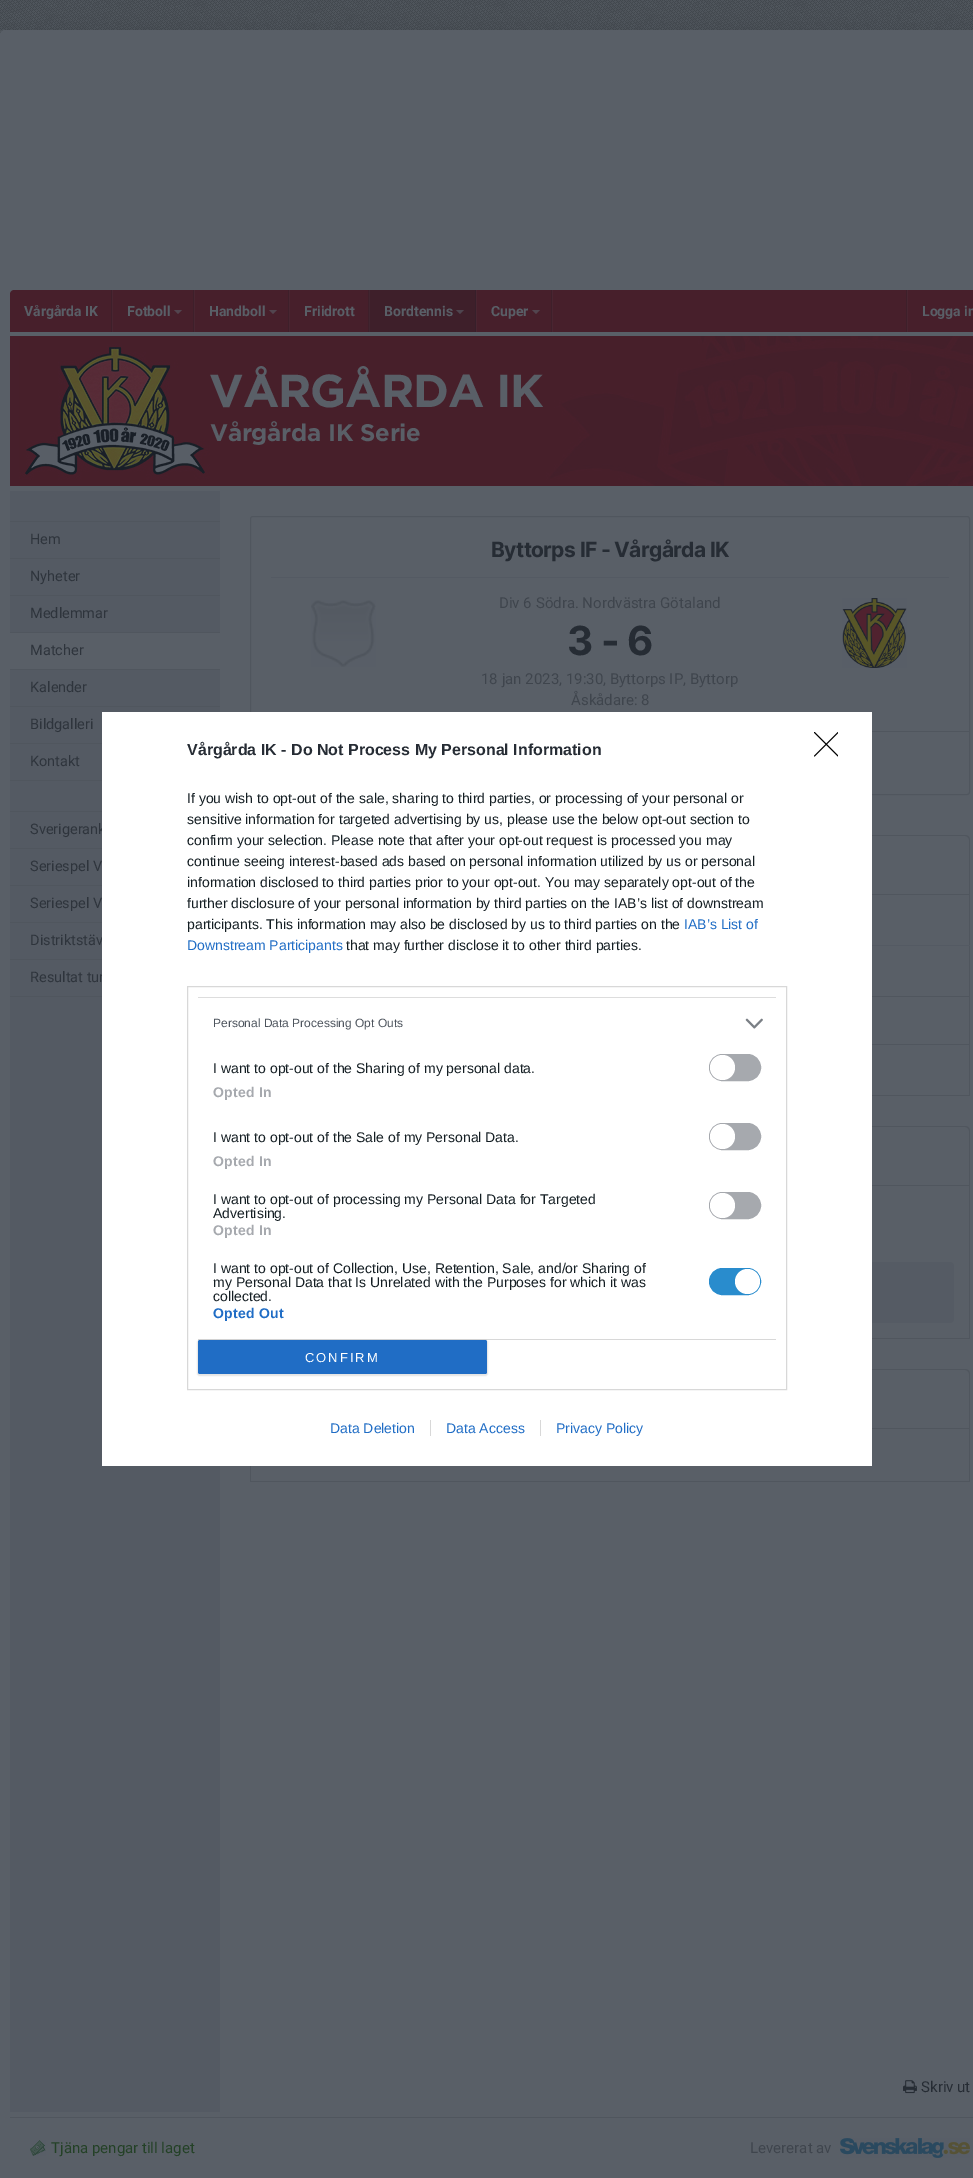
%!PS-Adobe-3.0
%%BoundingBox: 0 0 973 2178
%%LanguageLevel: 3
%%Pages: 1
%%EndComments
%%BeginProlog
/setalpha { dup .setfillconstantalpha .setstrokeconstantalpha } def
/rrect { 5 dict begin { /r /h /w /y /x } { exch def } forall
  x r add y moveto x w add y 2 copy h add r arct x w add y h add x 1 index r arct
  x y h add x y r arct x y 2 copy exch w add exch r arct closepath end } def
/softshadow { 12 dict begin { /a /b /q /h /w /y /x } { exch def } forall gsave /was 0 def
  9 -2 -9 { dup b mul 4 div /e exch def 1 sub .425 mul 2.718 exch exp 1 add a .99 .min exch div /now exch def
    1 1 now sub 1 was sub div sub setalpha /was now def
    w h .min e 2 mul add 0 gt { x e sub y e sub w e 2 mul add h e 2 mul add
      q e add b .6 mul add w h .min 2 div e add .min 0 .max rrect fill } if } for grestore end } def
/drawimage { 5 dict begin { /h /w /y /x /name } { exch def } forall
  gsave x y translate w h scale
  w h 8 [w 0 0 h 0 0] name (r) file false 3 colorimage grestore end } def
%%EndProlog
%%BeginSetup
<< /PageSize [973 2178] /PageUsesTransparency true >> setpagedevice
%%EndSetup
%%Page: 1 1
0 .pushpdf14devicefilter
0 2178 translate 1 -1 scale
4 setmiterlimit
1 setgray
0 0 973 2178 rectfill
(images/1.raw) 0 0 973 35 drawimage
0.098 0.122 0.153 setrgbcolor
-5 25 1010 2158 10 12.5 0.08 softshadow
0.349 0.373 0.404 setrgbcolor
newpath 5 30 moveto 973 30 lineto 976 30 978 32 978 35 curveto 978 2178 lineto 0 2178 lineto 0 35 lineto 0 32 2 30 5 30 curveto closepath fill
0.278 0.122 0.169 setrgbcolor
newpath 14 290 moveto 973 290 lineto 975 290 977 292 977 294 curveto 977 332 lineto 10 332 lineto 10 294 lineto 10 292 12 290 14 290 curveto closepath fill
0.286 0.145 0.192 setrgbcolor
552 290 1 42 rectfill
0.243 0.122 0.165 setrgbcolor
111 290 1 42 rectfill
193 290 1 42 rectfill
0.286 0.145 0.192 setrgbcolor
112 290 1 42 rectfill
0.322 0.271 0.31 setrgbcolor
newpath 174 310 moveto 182 310 lineto 178 314 lineto closepath fill
0.243 0.122 0.165 setrgbcolor
288 290 1 42 rectfill
0.286 0.145 0.192 setrgbcolor
194 290 1 42 rectfill
0.322 0.271 0.31 setrgbcolor
newpath 269 310 moveto 277 310 lineto 273 314 lineto closepath fill
0.243 0.122 0.165 setrgbcolor
368 290 1 42 rectfill
0.286 0.145 0.192 setrgbcolor
289 290 1 42 rectfill
0.243 0.122 0.165 setrgbcolor
370 290 105 42 rectfill
0.216 0.122 0.165 setrgbcolor
475 290 1 42 rectfill
0.255 0.145 0.188 setrgbcolor
369 290 1 42 rectfill
0.306 0.271 0.31 setrgbcolor
newpath 456 310 moveto 464 310 lineto 460 314 lineto closepath fill
0.243 0.122 0.165 setrgbcolor
551 290 1 42 rectfill
0.286 0.145 0.192 setrgbcolor
476 290 1 42 rectfill
0.322 0.271 0.31 setrgbcolor
newpath 532 310 moveto 540 310 lineto 536 314 lineto closepath fill
0.243 0.122 0.165 setrgbcolor
906 290 1 42 rectfill
0.286 0.145 0.192 setrgbcolor
907 290 1 42 rectfill
0.278 0.122 0.169 setrgbcolor
10 336 9 150 rectfill
(images/2.raw) 19 336 954 150 drawimage
0.329 0.353 0.388 setrgbcolor
10 491 210 1621 rectfill
0.314 0.337 0.369 setrgbcolor
10 521 210 1 rectfill
10 558 210 1 rectfill
10 595 210 1 rectfill
10 632 210 1 rectfill
0.349 0.373 0.404 setrgbcolor
10 633 210 36 rectfill
0.314 0.337 0.369 setrgbcolor
10 669 210 1 rectfill
10 706 210 1 rectfill
10 743 92 1 rectfill
10 780 92 1 rectfill
10 811 92 1 rectfill
10 848 92 1 rectfill
10 885 92 1 rectfill
10 922 92 1 rectfill
10 959 92 1 rectfill
10 996 92 1 rectfill
250.5 516.5 719 278 2.5 rrect stroke
0.329 0.353 0.388 setrgbcolor
271 577 678 1 rectfill
(images/3.raw) 311 600 65 67 drawimage
(images/4.raw) 842 598 65 70 drawimage
0.314 0.337 0.369 setrgbcolor
872 731 97 1 rectfill
newpath 255 835 moveto 965 835 lineto 968 835 970 837 970 840 curveto 970 997 lineto 250 997 lineto 250 840 lineto 250 837 252 835 255 835 curveto closepath 255 836 moveto 965 836 lineto 967 836 969 838 969 840 curveto 969 997 lineto 251 997 lineto 251 840 lineto 251 838 253 836 255 836 curveto closepath eofill
872 894 97 1 rectfill
0.329 0.353 0.388 setrgbcolor
872 945 98 1 rectfill
0.314 0.337 0.369 setrgbcolor
872 996 98 1 rectfill
969 997 1 99 rectfill
872 1044 97 1 rectfill
872 1095 98 1 rectfill
newpath 255 1126 moveto 965 1126 lineto 968 1126 970 1128 970 1131 curveto 970 1339 lineto 250 1339 lineto 250 1131 lineto 250 1128 252 1126 255 1126 curveto closepath 255 1127 moveto 965 1127 lineto 967 1127 969 1129 969 1131 curveto 969 1339 lineto 251 1339 lineto 251 1131 lineto 251 1129 253 1127 255 1127 curveto closepath eofill
872 1185 97 1 rectfill
872 1338 97 1 rectfill
0.333 0.357 0.392 setrgbcolor
266 1262 688 61 4 rrect fill
0.314 0.337 0.369 setrgbcolor
newpath 255 1369 moveto 965 1369 lineto 968 1369 970 1371 970 1374 curveto 970 1482 lineto 250 1482 lineto 250 1374 lineto 250 1371 252 1369 255 1369 curveto closepath 255 1370 moveto 965 1370 lineto 967 1370 969 1372 969 1374 curveto 969 1482 lineto 251 1482 lineto 251 1374 lineto 251 1372 253 1370 255 1370 curveto closepath eofill
872 1428 97 1 rectfill
251 1481 718 1 rectfill
(images/5.raw) 903 2080 14 14 drawimage
10 2117 963 1 rectfill
(images/6.raw) 30 2140 16 16 drawimage
(images/7.raw) 840 2138 130 20 drawimage
/Roboto-Bold [14 0 0 -14 0 0] selectfont
0.349 0.373 0.404 setrgbcolor
24 316 moveto (Vårgårda IK) show
127 316 moveto (Fotboll) show
209 316 moveto (Handboll) show
304 316 moveto (Friidrott) show
384 316 moveto (Bordtennis) show
491 316 moveto (Cuper) show
922 316 moveto (Logga in) show
/Gotham-Bold [46 0 0 -46 0 0] selectfont
209 407 moveto -1 0 (VÅRGÅRDA IK) ashow
/Gotham-Bold [24 0 0 -24 0 0] selectfont
210 441 moveto -0.25 0 (Vårgårda IK Serie) ashow
/Roboto-Regular [14.5 0 0 -14.5 0 0] selectfont
0.18 0.204 0.235 setrgbcolor
30 544 moveto (Hem) show
30 581 moveto (Nyheter) show
30 618 moveto (Medlemmar) show
30 655 moveto (Matcher) show
30 692 moveto (Kalender) show
30 729 moveto (Bildgalleri) show
30 766 moveto (Kontakt) show
30 834 moveto (Sverigerank) show
30 871 moveto (Seriespel V) show
30 908 moveto (Seriespel V) show
30 945 moveto (Distriktstäv) show
30 982 moveto (Resultat tur) show
/Inter-Bold [21 0 0 -21 0 0] selectfont
0.149 0.173 0.204 setrgbcolor
491 557 moveto -0.6 0 (Byttorps IF - Vårgårda IK) ashow
/Roboto-Regular [15 0 0 -15 0 0] selectfont
0.247 0.271 0.302 setrgbcolor
499 608 moveto (Div 6 Södra. Nordvästra Götaland) show
/Inter-Bold [40 0 0 -40 0 0] selectfont
0.149 0.173 0.204 setrgbcolor
567 655 moveto -1 0 (3 - 6) ashow
/Roboto-Regular [15 0 0 -15 0 0] selectfont
0.247 0.271 0.302 setrgbcolor
481 684 moveto (18 jan 2023, 19:30, Byttorps IP, Byttorp) show
571 705 moveto (Åskådare: 8) show
0.149 0.173 0.204 setrgbcolor
921 2092 moveto (Skriv ut) show
0.141 0.255 0.153 setrgbcolor
51 2153 moveto (Tjäna pengar till laget) show
0.247 0.271 0.302 setrgbcolor
750 2153 moveto (Levererat av) show
1 setgray
102 712 770 754 rectfill
/LiberationSans-Bold [16 0 0 -16 0 0] selectfont
0.149 0.173 0.204 setrgbcolor
187 755 moveto (Vårgårda IK - Do Not Process My Personal Information) show
/LiberationSans-Regular [14 0 0 -14 0 0] selectfont
0.078 0.118 0.137 setrgbcolor
187 803 moveto (If you wish to opt-out of the sale, sharing to third parties, or processing of your personal or) show
187 824 moveto (sensitive information for targeted advertising by us, please use the below opt-out section to) show
187 845 moveto (confirm your selection. Please note that after your opt-out request is processed you may) show
187 866 moveto (continue seeing interest-based ads based on personal information utilized by us or personal) show
187 887 moveto (information disclosed to third parties prior to your opt-out. You may separately opt-out of the) show
187 908 moveto (further disclosure of your personal information by third parties on the IAB’s list of downstream) show
187 929 moveto (participants. This information may also be disclosed by us to third parties on the) show
0.125 0.427 0.773 setrgbcolor
684 929 moveto (IAB’s List of) show
187 950 moveto (Downstream Participants) show
0.078 0.118 0.137 setrgbcolor
346 950 moveto (that may further disclose it to other third parties.) show
0.847 setgray
187.5 986.5 599 403 rectstroke
0.867 setgray
198 997 578 1 rectfill
0.847 setgray
198 1339 578 1 rectfill
/LiberationSans-Regular [12 0 0 -12 0 0] selectfont
0.302 0.329 0.365 setrgbcolor
213 1027 moveto (Personal Data Processing Opt Outs) show
(images/8.raw) 745 1018 18 11 drawimage
/LiberationSans-Regular [14 0 0 -14 0 0] selectfont
0.078 0.118 0.137 setrgbcolor
213 1073 moveto (I want to opt-out of the Sharing of my personal data.) show
0.651 0.663 0.682 setrgbcolor
709.5 1054.5 51 26 13 rrect gsave fill grestore
stroke
1 setgray
newpath 722.5 1067.5 12.5 0 360 arc closepath fill
/LiberationSans-Bold [14 0 0 -14 0 0] selectfont
0.651 0.663 0.682 setrgbcolor
213 1097 moveto 0.25 0 (Opted In) ashow
/LiberationSans-Regular [14 0 0 -14 0 0] selectfont
0.078 0.118 0.137 setrgbcolor
213 1142 moveto (I want to opt-out of the Sale of my Personal Data.) show
0.651 0.663 0.682 setrgbcolor
709.5 1123.5 51 26 13 rrect gsave fill grestore
stroke
1 setgray
newpath 722.5 1136.5 12.5 0 360 arc closepath fill
/LiberationSans-Bold [14 0 0 -14 0 0] selectfont
0.651 0.663 0.682 setrgbcolor
213 1166 moveto 0.25 0 (Opted In) ashow
/LiberationSans-Regular [14 0 0 -14 0 0] selectfont
0.078 0.118 0.137 setrgbcolor
213 1204 moveto (I want to opt-out of processing my Personal Data for Targeted) show
213 1218 moveto (Advertising.) show
0.651 0.663 0.682 setrgbcolor
709.5 1192.5 51 26 13 rrect gsave fill grestore
stroke
1 setgray
newpath 722.5 1205.5 12.5 0 360 arc closepath fill
/LiberationSans-Bold [14 0 0 -14 0 0] selectfont
0.651 0.663 0.682 setrgbcolor
213 1235 moveto 0.25 0 (Opted In) ashow
/LiberationSans-Regular [14 0 0 -14 0 0] selectfont
0.078 0.118 0.137 setrgbcolor
213 1273 moveto (I want to opt-out of Collection, Use, Retention, Sale, and/or Sharing of) show
213 1287 moveto (my Personal Data that Is Unrelated with the Purposes for which it was) show
213 1301 moveto (collected.) show
0.161 0.549 0.804 setrgbcolor
709.5 1268.5 51 26 13 rrect gsave fill grestore
stroke
1 setgray
newpath 747.5 1281.5 12.5 0 360 arc closepath fill
/LiberationSans-Bold [14 0 0 -14 0 0] selectfont
0.125 0.427 0.773 setrgbcolor
213 1318 moveto 0.25 0 (Opted Out) ashow
0 setgray
197 1340 291 36 3 0.5 0.1 softshadow
0.125 0.427 0.773 setrgbcolor
198 1340 289 34 2 rrect fill
/LiberationSans-Regular [13 0 0 -13 0 0] selectfont
1 setgray
305 1362 moveto 2 0 (CONFIRM) ashow
gsave
814 732 24 25 rectclip
0 setgray
1 setlinecap
1 setlinejoin
newpath 814.5 732.5 moveto 838 756 lineto 838 732.5 moveto 814.5 756 lineto stroke
grestore
/LiberationSans-Regular [14 0 0 -14 0 0] selectfont
0.125 0.427 0.773 setrgbcolor
330 1433 moveto (Data Deletion) show
446 1433 moveto (Data Access) show
0.847 setgray
430 1420 1 16 rectfill
0.125 0.427 0.773 setrgbcolor
556 1433 moveto (Privacy Policy) show
0.847 setgray
540 1420 1 16 rectfill
.poppdf14devicefilter showpage
%%EOF
